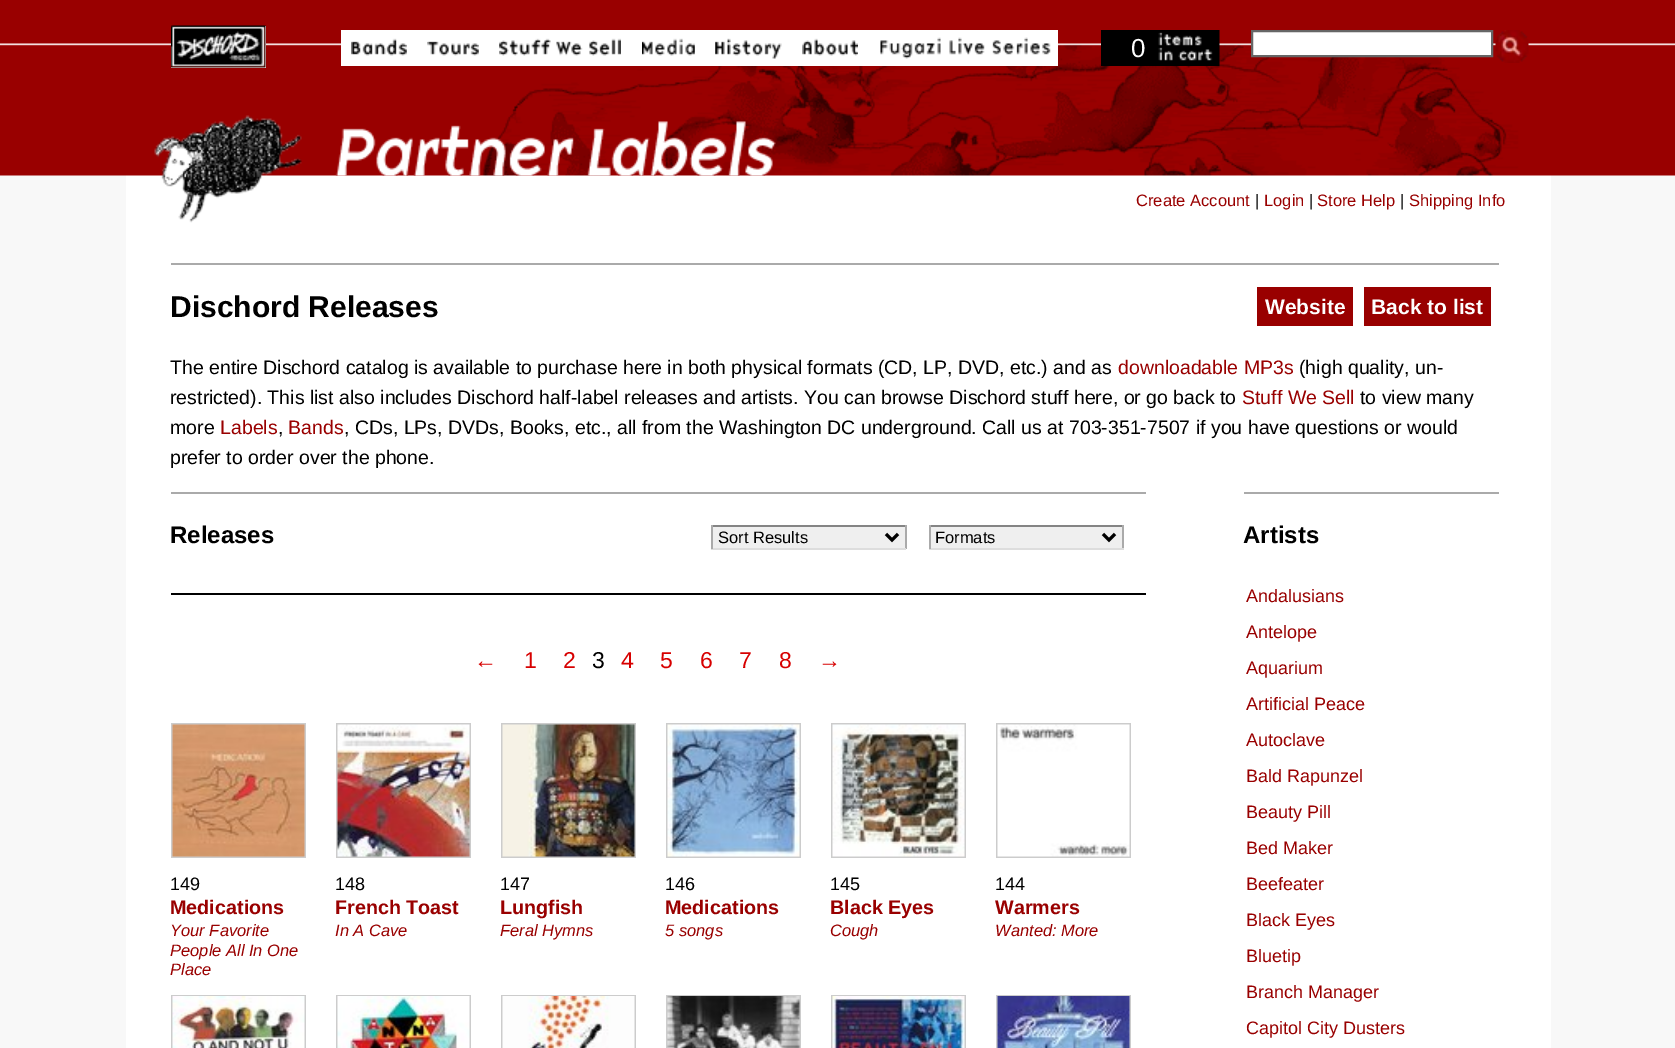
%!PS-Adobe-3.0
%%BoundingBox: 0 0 1675 1048
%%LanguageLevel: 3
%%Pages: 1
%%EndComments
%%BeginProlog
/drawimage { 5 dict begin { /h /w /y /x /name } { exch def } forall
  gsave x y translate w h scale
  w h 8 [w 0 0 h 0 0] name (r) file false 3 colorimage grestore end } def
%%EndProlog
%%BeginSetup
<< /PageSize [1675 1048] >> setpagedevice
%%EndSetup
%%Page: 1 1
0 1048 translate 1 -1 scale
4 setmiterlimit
0.973 setgray
0 0 1675 1048 rectfill
(images/1.raw) 0 0 1675 176 drawimage
1 setgray
126 175 1425 873 rectfill
(images/2.raw) 126 0 1425 223 drawimage
171 26 95 42 rectfill
(images/3.raw) 171 25 95 43 drawimage
341 30 717 36 rectfill
(images/4.raw) 351 38 56 18 drawimage
(images/5.raw) 406 44 1 11 drawimage
(images/6.raw) 427 41 52 15 drawimage
(images/7.raw) 427 42 52 13 drawimage
(images/8.raw) 499 38 122 18 drawimage
(images/9.raw) 499 42 1 13 drawimage
(images/10.raw) 642 38 53 18 drawimage
(images/11.raw) 694 43 1 12 drawimage
(images/12.raw) 715 38 67 21 drawimage
(images/13.raw) 715 41 67 14 drawimage
(images/14.raw) 802 38 56 18 drawimage
(images/15.raw) 802 44 1 11 drawimage
(images/16.raw) 880 37 171 22 drawimage
(images/17.raw) 1043 43 1 11 drawimage
(images/18.raw) 1101 30 119 36 drawimage
newpath 1252 31 moveto 1492 31 lineto 1492 56 lineto 1252 56 lineto closepath gsave fill grestore
0.4 setgray
2 setlinewidth
stroke
(images/19.raw) 1495 30 34 33 drawimage
(images/20.raw) 335 121 441 55 drawimage
0.667 setgray
171 263 1328 2 rectfill
0.6 0 0 setrgbcolor
1257 287 96 39 rectfill
1364 287 127 39 rectfill
0.667 setgray
171 492 975 2 rectfill
0.937 setgray
713 527 192 21 rectfill
0.518 setgray
711 525 195 2 rectfill
0.667 setgray
905 525 2 24 rectfill
0.867 setgray
711 548 195 2 rectfill
0.667 setgray
711 525 2 24 rectfill
0 setgray
3 setlinewidth
newpath 886 534 moveto 892 540 lineto 898 534 lineto stroke
0.937 setgray
931 527 191 21 rectfill
0.518 setgray
929 525 195 2 rectfill
0.667 setgray
1122 525 2 24 rectfill
0.867 setgray
929 548 195 2 rectfill
0.667 setgray
929 525 2 24 rectfill
0 setgray
newpath 1103 534 moveto 1109 540 lineto 1115 534 lineto stroke
171 593 975 2 rectfill
0.8 setgray
171 723 135 135 rectfill
(images/21.raw) 172 724 133 133 drawimage
336 723 135 135 rectfill
(images/22.raw) 337 724 133 133 drawimage
501 723 135 135 rectfill
(images/23.raw) 502 724 133 133 drawimage
666 723 135 135 rectfill
(images/24.raw) 667 724 133 133 drawimage
831 723 135 135 rectfill
(images/25.raw) 832 724 133 133 drawimage
996 723 135 135 rectfill
(images/26.raw) 997 724 133 133 drawimage
171 995 135 53 rectfill
(images/27.raw) 172 996 133 52 drawimage
336 995 135 53 rectfill
(images/28.raw) 337 996 133 52 drawimage
501 995 135 53 rectfill
(images/29.raw) 502 996 133 52 drawimage
666 995 135 53 rectfill
(images/30.raw) 667 996 133 52 drawimage
831 995 135 53 rectfill
(images/31.raw) 832 996 133 52 drawimage
996 995 135 53 rectfill
(images/32.raw) 997 996 133 52 drawimage
0.667 setgray
1244 492 255 2 rectfill
/LiberationSans-Regular [26 0 0 -26 0 0] selectfont
1 setgray
1131 57 moveto (0) show
/LiberationSans-Regular [16.5 0 0 -16.5 0 0] selectfont
0.6 0 0 setrgbcolor
1136 206 moveto (Create Account) show
0 setgray
1255 206 moveto (|) show
0.6 0 0 setrgbcolor
1264 206 moveto (Login) show
0 setgray
1309 206 moveto (|) show
0.6 0 0 setrgbcolor
1317 206 moveto (Store Help) show
0 setgray
1400 206 moveto (|) show
0.6 0 0 setrgbcolor
1409 206 moveto (Shipping Info) show
/LiberationSans-Bold [30 0 0 -30 0 0] selectfont
0 setgray
170 317 moveto (Dischord Releases) show
/LiberationSans-Bold [21 0 0 -21 0 0] selectfont
1 setgray
1265 314 moveto (Website) show
1371 314 moveto (Back to list) show
/LiberationSans-Regular [19.5 0 0 -19.5 0 0] selectfont
0 setgray
170 374 moveto (The entire Dischord catalog is available to purchase here in both physical formats \(CD, LP, DVD, etc.\) and as) show
0.6 0 0 setrgbcolor
1118 374 moveto (downloadable MP3s) show
0 setgray
1299 374 moveto (\(high quality, un-) show
170 404 moveto (restricted\). This list also includes Dischord half-label releases and artists. You can browse Dischord stuff here, or go back to) show
0.6 0 0 setrgbcolor
1242 404 moveto (Stuff We Sell) show
0 setgray
1360 404 moveto (to view many) show
170 434 moveto (more) show
0.6 0 0 setrgbcolor
220 434 moveto (Labels) show
0 setgray
278 434 moveto (,) show
0.6 0 0 setrgbcolor
288 434 moveto (Bands) show
0 setgray
344 434 moveto (, CDs, LPs, DVDs, Books, etc., all from the Washington DC underground. Call us at 703-351-7507 if you have questions or would) show
170 464 moveto (prefer to order over the phone.) show
/LiberationSans-Bold [24 0 0 -24 0 0] selectfont
170 543 moveto (Releases) show
/LiberationSans-Regular [16.5 0 0 -16.5 0 0] selectfont
718 543 moveto (Sort Results) show
935 543 moveto (Formats) show
/LiberationSans-Regular [23 0 0 -23 0 0] selectfont
0.843 0 0 setrgbcolor
474 668 moveto (←) show
524 668 moveto (1) show
563 668 moveto (2) show
0 setgray
592 668 moveto (3) show
0.843 0 0 setrgbcolor
621 668 moveto (4) show
660 668 moveto (5) show
700 668 moveto (6) show
739 668 moveto (7) show
779 668 moveto (8) show
818 668 moveto (→) show
/LiberationSans-Regular [18 0 0 -18 0 0] selectfont
0 setgray
170 890 moveto (149) show
/LiberationSans-Bold [19.75 0 0 -19.75 0 0] selectfont
0.6 0 0 setrgbcolor
170 914 moveto (Medications) show
/LiberationSans-Italic [16.5 0 0 -16.5 0 0] selectfont
170 936 moveto (Your Favorite) show
170 956 moveto (People All In One) show
170 975 moveto (Place) show
/LiberationSans-Regular [18 0 0 -18 0 0] selectfont
0 setgray
335 890 moveto (148) show
/LiberationSans-Bold [19.75 0 0 -19.75 0 0] selectfont
0.6 0 0 setrgbcolor
335 914 moveto (French Toast) show
/LiberationSans-Italic [16.5 0 0 -16.5 0 0] selectfont
335 936 moveto (In A Cave) show
/LiberationSans-Regular [18 0 0 -18 0 0] selectfont
0 setgray
500 890 moveto (147) show
/LiberationSans-Bold [19.75 0 0 -19.75 0 0] selectfont
0.6 0 0 setrgbcolor
500 914 moveto (Lungfish) show
/LiberationSans-Italic [16.5 0 0 -16.5 0 0] selectfont
500 936 moveto (Feral Hymns) show
/LiberationSans-Regular [18 0 0 -18 0 0] selectfont
0 setgray
665 890 moveto (146) show
/LiberationSans-Bold [19.75 0 0 -19.75 0 0] selectfont
0.6 0 0 setrgbcolor
665 914 moveto (Medications) show
/LiberationSans-Italic [16.5 0 0 -16.5 0 0] selectfont
665 936 moveto (5 songs) show
/LiberationSans-Regular [18 0 0 -18 0 0] selectfont
0 setgray
830 890 moveto (145) show
/LiberationSans-Bold [19.75 0 0 -19.75 0 0] selectfont
0.6 0 0 setrgbcolor
830 914 moveto (Black Eyes) show
/LiberationSans-Italic [16.5 0 0 -16.5 0 0] selectfont
830 936 moveto (Cough) show
/LiberationSans-Regular [18 0 0 -18 0 0] selectfont
0 setgray
995 890 moveto (144) show
/LiberationSans-Bold [19.75 0 0 -19.75 0 0] selectfont
0.6 0 0 setrgbcolor
995 914 moveto (Warmers) show
/LiberationSans-Italic [16.5 0 0 -16.5 0 0] selectfont
995 936 moveto (Wanted: More) show
/LiberationSans-Bold [24 0 0 -24 0 0] selectfont
0 setgray
1243 543 moveto (Artists) show
/LiberationSans-Regular [18 0 0 -18 0 0] selectfont
0.6 0 0 setrgbcolor
1246 602 moveto (Andalusians) show
1246 638 moveto (Antelope) show
1246 674 moveto (Aquarium) show
1246 710 moveto (Artificial Peace) show
1246 746 moveto (Autoclave) show
1246 782 moveto (Bald Rapunzel) show
1246 818 moveto (Beauty Pill) show
1246 854 moveto (Bed Maker) show
1246 890 moveto (Beefeater) show
1246 926 moveto (Black Eyes) show
1246 962 moveto (Bluetip) show
1246 998 moveto (Branch Manager) show
1246 1034 moveto (Capitol City Dusters) show
showpage
%%EOF
